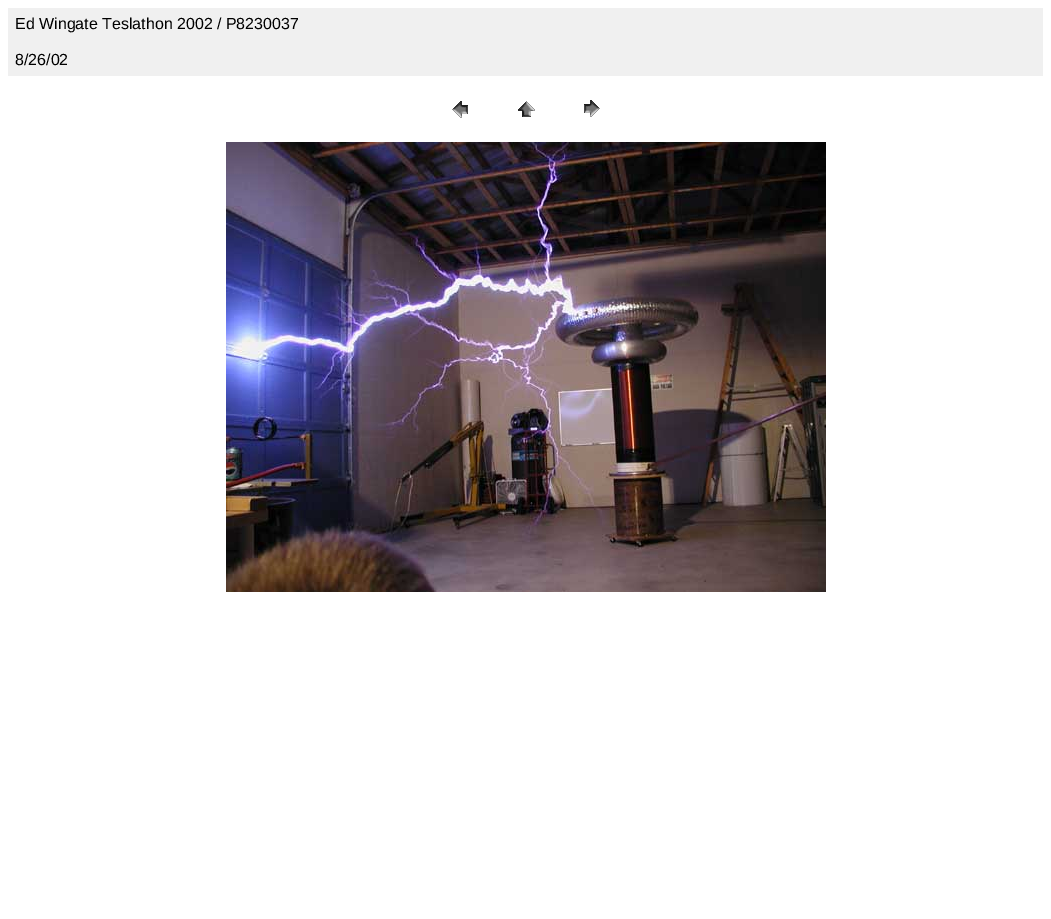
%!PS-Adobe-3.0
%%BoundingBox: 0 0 1051 919
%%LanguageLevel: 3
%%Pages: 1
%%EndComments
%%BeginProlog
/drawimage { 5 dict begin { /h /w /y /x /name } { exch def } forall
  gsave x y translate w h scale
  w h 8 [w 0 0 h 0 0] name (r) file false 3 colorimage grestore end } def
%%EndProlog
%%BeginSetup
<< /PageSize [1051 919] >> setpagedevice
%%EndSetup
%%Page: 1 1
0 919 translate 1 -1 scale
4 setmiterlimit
1 setgray
0 0 1051 919 rectfill
0.941 setgray
8 8 1035 68 rectfill
(images/1.raw) 452 101 16 17 drawimage
(images/2.raw) 518 101 17 16 drawimage
(images/3.raw) 584 100 16 17 drawimage
(images/4.raw) 226 142 600 450 drawimage
/LiberationSans-Regular [16 0 0 -16 0 0] selectfont
0 setgray
15 29 moveto (Ed Wingate Teslathon 2002 / P8230037) show
15 65 moveto (8/26/02) show
showpage
%%EOF
